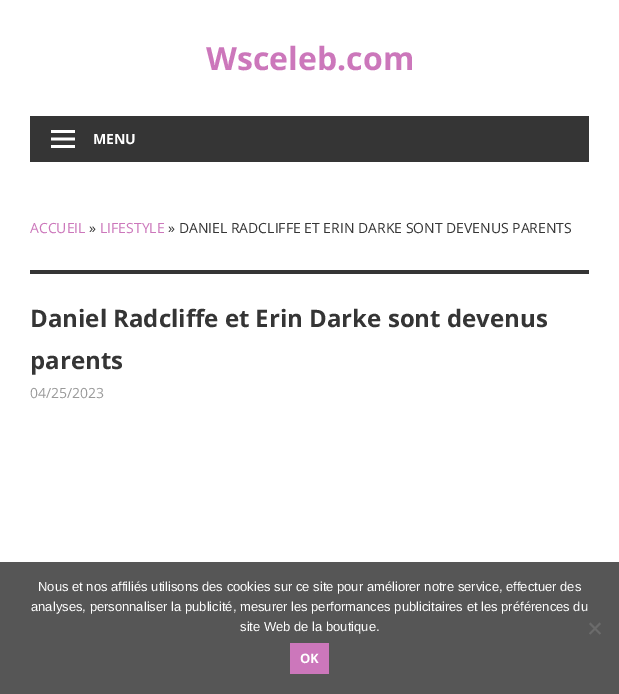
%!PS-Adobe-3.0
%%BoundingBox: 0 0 619 694
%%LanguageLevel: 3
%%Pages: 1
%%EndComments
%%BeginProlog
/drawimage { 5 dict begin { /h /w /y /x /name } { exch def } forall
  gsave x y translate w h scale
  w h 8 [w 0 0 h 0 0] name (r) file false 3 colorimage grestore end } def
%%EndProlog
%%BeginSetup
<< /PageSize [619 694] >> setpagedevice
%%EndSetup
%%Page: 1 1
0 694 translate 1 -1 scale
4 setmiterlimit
1 setgray
0 0 619 694 rectfill
0.208 setgray
30 116 559 46 rectfill
(images/1.raw) 51 130 24 18 drawimage
30 270 559 4 rectfill
0.337 setgray
0 562 619 132 rectfill
0.42 setgray
newpath 599.5 622.5 moveto 601 624 lineto 590.5 634.5 lineto 589 633.5 lineto closepath fill
newpath 589 624 moveto 590.5 622.5 lineto 601 633.5 lineto 599.5 634.5 lineto closepath fill
0.8 0.467 0.733 setrgbcolor
290 643 39 31 rectfill
/OpenSans-Bold [32 0 0 -32 0 0] selectfont
206 70 moveto (Wsceleb.com) show
/OpenSans-Bold [14 0 0 -14 0 0] selectfont
1 setgray
93 144 moveto (MENU) show
/OpenSans-Regular [14 0 0 -14 0 0] selectfont
0.8 0.467 0.733 setrgbcolor
30 233 moveto (ACCUEIL) show
0.208 setgray
89 233 moveto (») show
0.8 0.467 0.733 setrgbcolor
100 233 moveto (LIFESTYLE) show
0.208 setgray
168 233 moveto (» DANIEL RADCLIFFE ET ERIN DARKE SONT DEVENUS PARENTS) show
/OpenSans-Bold [24 0 0 -24 0 0] selectfont
30 327 moveto (Daniel Radcliffe et Erin Darke sont devenus) show
30 369 moveto (parents) show
/OpenSans-Regular [14 0 0 -14 0 0] selectfont
0.6 setgray
30 398 moveto (04/25/2023) show
/LiberationSans-Regular [13 0 0 -13 0 0] selectfont
1 setgray
38 591 moveto (Nous et nos affiliés utilisons des cookies sur ce site pour améliorer notre service, effectuer des) show
31 611 moveto (analyses, personnaliser la publicité, mesurer les performances publicitaires et les préférences du) show
240 631 moveto (site Web de la boutique.) show
/OpenSans-Bold [13 0 0 -13 0 0] selectfont
300 663 moveto (OK) show
showpage
%%EOF
